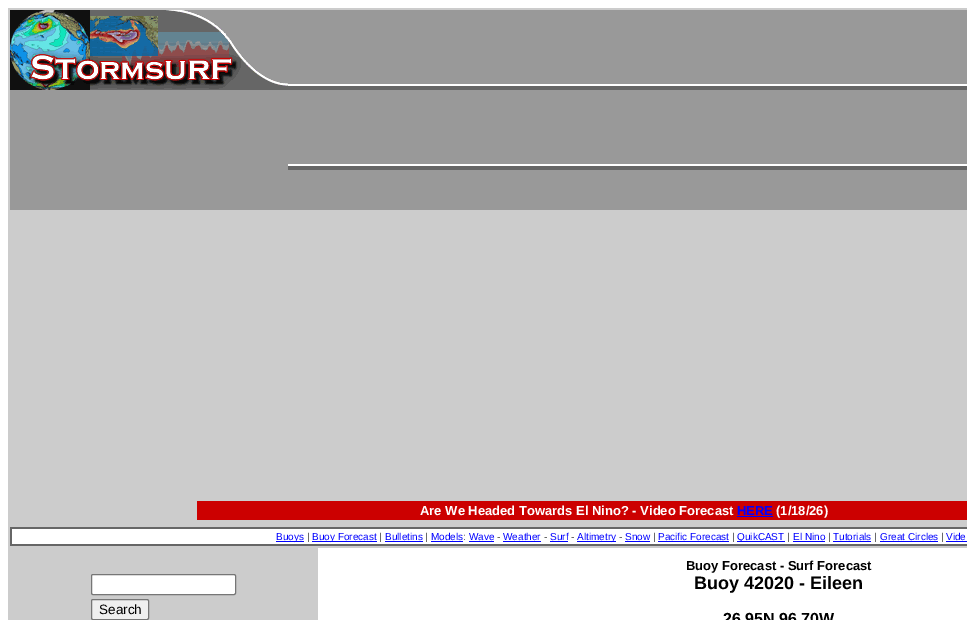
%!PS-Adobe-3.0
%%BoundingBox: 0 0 967 620
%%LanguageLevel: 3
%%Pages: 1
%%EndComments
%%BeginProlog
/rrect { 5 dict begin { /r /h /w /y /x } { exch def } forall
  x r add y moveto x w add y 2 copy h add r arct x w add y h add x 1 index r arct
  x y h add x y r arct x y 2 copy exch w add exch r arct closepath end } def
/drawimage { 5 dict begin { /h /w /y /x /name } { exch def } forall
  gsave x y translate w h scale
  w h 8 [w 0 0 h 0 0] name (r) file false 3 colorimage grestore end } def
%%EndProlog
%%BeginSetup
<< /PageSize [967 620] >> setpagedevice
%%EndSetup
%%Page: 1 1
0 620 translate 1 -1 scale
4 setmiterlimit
1 setgray
0 0 967 620 rectfill
0.8 setgray
8 8 959 540 rectfill
0.6 setgray
10 10 957 200 rectfill
(images/1.raw) 10 10 278 80 drawimage
(images/2.raw) 288 84 679 86 drawimage
0.8 0 0 setrgbcolor
197 501 770 19 rectfill
0 0 1 setrgbcolor
737 516 36 1 rectfill
0.4 setgray
10 527 957 19 rectfill
1 setgray
12 529 955 15 rectfill
0 0 1 setrgbcolor
276 541 28 1 rectfill
312 541 65 1 rectfill
385 541 38 1 rectfill
431 541 32 1 rectfill
469 541 25 1 rectfill
503 541 38 1 rectfill
550 541 18 1 rectfill
577 541 39 1 rectfill
625 541 25 1 rectfill
658 541 71 1 rectfill
737 541 48 1 rectfill
793 541 32 1 rectfill
833 541 38 1 rectfill
880 541 58 1 rectfill
946 541 21 1 rectfill
0.8 setgray
8 548 310 72 rectfill
1 setgray
91.5 574.5 144 20 1.5 rrect gsave fill grestore
0.463 setgray
stroke
0.937 setgray
91.5 599.5 57 20 1.5 rrect gsave fill grestore
0.463 setgray
stroke
/LiberationSans-Bold [13 0 0 -13 0 0] selectfont
1 setgray
420 515 moveto (Are We Headed Towards El Nino? - Video Forecast) show
0 0 1 setrgbcolor
737 515 moveto (HERE) show
1 setgray
776 515 moveto (\(1/18/26\)) show
/LiberationSans-Regular [10 0 0 -10 0 0] selectfont
0 0 1 setrgbcolor
276 540 moveto (Buoys) show
0.2 setgray
307 540 moveto (|) show
0 0 1 setrgbcolor
312 540 moveto (Buoy Forecast) show
0.2 setgray
379 540 moveto (|) show
0 0 1 setrgbcolor
385 540 moveto (Bulletins) show
0.2 setgray
425 540 moveto (|) show
0 0 1 setrgbcolor
431 540 moveto (Models) show
0.2 setgray
463 540 moveto (:) show
0 0 1 setrgbcolor
469 540 moveto (Wave) show
0.2 setgray
497 540 moveto (-) show
0 0 1 setrgbcolor
503 540 moveto (Weather) show
0.2 setgray
544 540 moveto (-) show
0 0 1 setrgbcolor
550 540 moveto (Surf) show
0.2 setgray
571 540 moveto (-) show
0 0 1 setrgbcolor
577 540 moveto (Altimetry) show
0.2 setgray
619 540 moveto (-) show
0 0 1 setrgbcolor
625 540 moveto (Snow) show
0.2 setgray
653 540 moveto (|) show
0 0 1 setrgbcolor
658 540 moveto (Pacific Forecast) show
0.2 setgray
732 540 moveto (|) show
0 0 1 setrgbcolor
737 540 moveto (QuikCAST) show
0.2 setgray
787 540 moveto (|) show
0 0 1 setrgbcolor
793 540 moveto (El Nino) show
0.2 setgray
828 540 moveto (|) show
0 0 1 setrgbcolor
833 540 moveto (Tutorials) show
0.2 setgray
874 540 moveto (|) show
0 0 1 setrgbcolor
880 540 moveto (Great Circles) show
0.2 setgray
941 540 moveto (|) show
0 0 1 setrgbcolor
946 540 moveto (Vide) show
/LiberationSans-Regular [13.5 0 0 -13.5 0 0] selectfont
0 setgray
99 614 moveto (Search) show
/LiberationSans-Bold [13 0 0 -13 0 0] selectfont
686 570 moveto (Buoy Forecast - Surf Forecast) show
/LiberationSans-Bold [18 0 0 -18 0 0] selectfont
694 589 moveto (Buoy 42020 - Eileen) show
/LiberationSans-Bold [16 0 0 -16 0 0] selectfont
723 624 moveto (26.95N 96.70W) show
showpage
%%EOF
